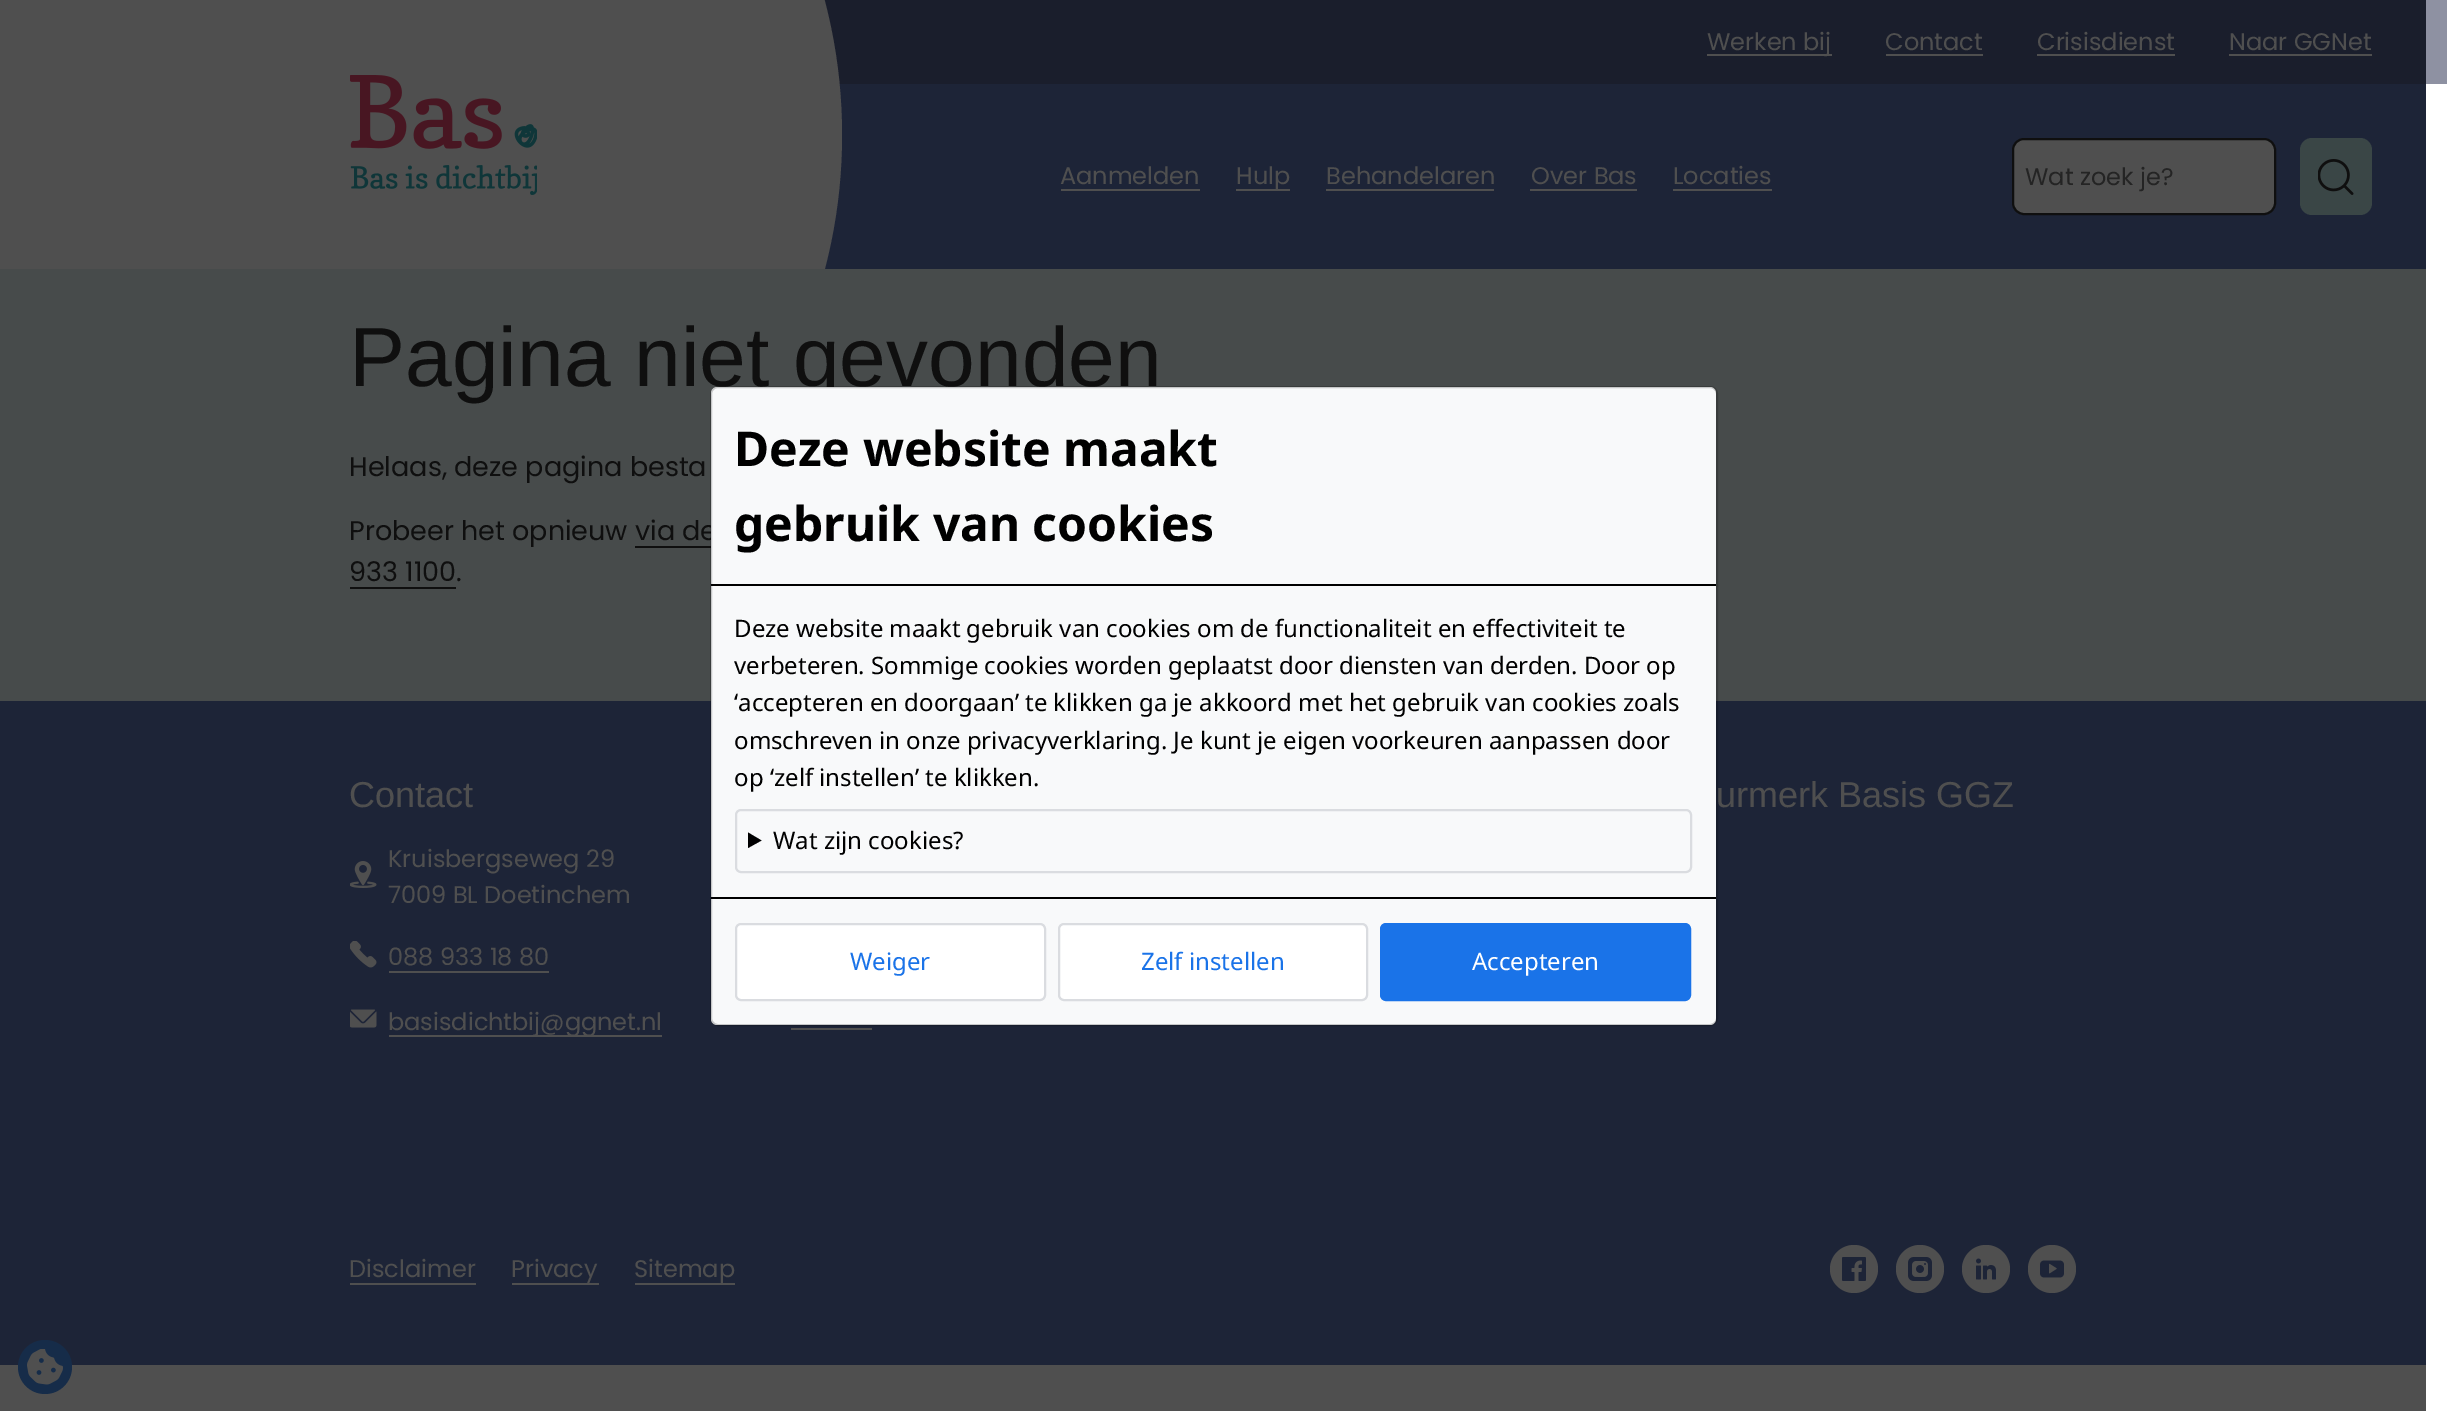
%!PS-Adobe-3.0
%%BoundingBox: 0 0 2447 1411
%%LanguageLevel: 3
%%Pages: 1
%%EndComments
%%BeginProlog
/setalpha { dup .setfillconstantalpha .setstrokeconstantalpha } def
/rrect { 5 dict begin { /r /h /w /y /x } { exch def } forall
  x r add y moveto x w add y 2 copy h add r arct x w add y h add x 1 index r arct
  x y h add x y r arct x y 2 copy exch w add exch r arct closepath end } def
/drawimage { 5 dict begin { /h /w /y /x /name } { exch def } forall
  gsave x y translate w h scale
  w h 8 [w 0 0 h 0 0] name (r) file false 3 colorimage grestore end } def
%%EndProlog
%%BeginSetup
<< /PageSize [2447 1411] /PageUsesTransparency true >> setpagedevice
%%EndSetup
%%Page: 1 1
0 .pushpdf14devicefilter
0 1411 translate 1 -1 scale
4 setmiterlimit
1 setgray
0 0 2447 1411 rectfill
0.31 setgray
0 1365 2426 46 rectfill
0.557 0.569 0.635 setrgbcolor
2426 0 21 84 rectfill
0.114 0.141 0.216 setrgbcolor
824 84 1602 185 rectfill
0.102 0.118 0.173 setrgbcolor
824 0 1602 84 rectfill
0.31 setgray
0 0 314 269 rectfill
1707 54 125 2 rectfill
1886 54 97 2 rectfill
2037 54 138 2 rectfill
2229 54 143 2 rectfill
1061 189 139 2 rectfill
1236 189 54 2 rectfill
1326 189 168 2 rectfill
1530 189 107 2 rectfill
1673 189 99 2 rectfill
2013 139 262 75 11 rrect gsave fill grestore
0.059 setgray
2 setlinewidth
stroke
0.227 0.275 0.275 setrgbcolor
2300 138 72 77 12 rrect fill
(images/2.raw) 2318 159 36 36 drawimage
0.278 0.294 0.294 setrgbcolor
0 269 2426 432 rectfill
0.059 setgray
635 546 76 2 rectfill
350 587 106 2 rectfill
0.114 0.141 0.216 setrgbcolor
0 701 2426 664 rectfill
(images/3.raw) 350 861 27 27 drawimage
(images/4.raw) 350 941 27 27 drawimage
0.31 setgray
389 971 160 2 rectfill
(images/5.raw) 350 1009 27 19 drawimage
389 1035 273 2 rectfill
791 1028 81 2 rectfill
350 1283 126 2 rectfill
512 1283 87 2 rectfill
635 1283 100 2 rectfill
newpath 1854 1269 24 0 360 arc closepath fill
(images/6.raw) 1842 1257 24 24 drawimage
newpath 1920 1269 24 0 360 arc closepath fill
(images/7.raw) 1908 1257 24 24 drawimage
newpath 1986 1269 24 0 360 arc closepath fill
(images/8.raw) 1976 1258 20 22 drawimage
newpath 2052 1269 24 0 360 arc closepath fill
(images/9.raw) 2040 1260 24 18 drawimage
0.086 0.173 0.286 setrgbcolor
newpath 45 1367 27 0 360 arc closepath fill
(images/10.raw) 27 1349 36 36 drawimage
/Poppins-Regular [24 0 0 -24 0 0] selectfont
0.31 setgray
1707 50 moveto (Werken bij) show
1885 50 moveto (Contact) show
2037 50 moveto (Crisisdienst) show
2229 50 moveto (Naar GGNet) show
1060 184 moveto (Aanmelden) show
1236 184 moveto (Hulp) show
1326 184 moveto (Behandelaren) show
1531 184 moveto (Over Bas) show
1673 184 moveto (Locaties) show
0.141 setgray
2025 185 moveto (Wat zoek je?) show
/LiberationSans-Regular [84 0 0 -84 0 0] selectfont
0.059 setgray
349 386 moveto (Pagina niet gevonden) show
/Poppins-Regular [27 0 0 -27 0 0] selectfont
349 476 moveto (Helaas, deze pagina besta) show
349 540 moveto (Probeer het opnieuw via de) show
349 581 moveto (933 1100.) show
gsave
314 0 528 269 rectclip
0.31 setgray
newpath 314 135 528 0 360 arc closepath fill
grestore
(images/1.raw) 350 75 187 120 drawimage
0.973 0.976 0.98 setrgbcolor
711 387 1005 638 6 rrect fill
0.2 setalpha
0 setgray
711 387 1006 638 7 rrect stroke
1 setalpha
711 584 1005 2 rectfill
/NotoSans-Bold [48 0 0 -48 0 0] selectfont
734 466 moveto (Deze website maakt) show
734 541 moveto (gebruik van cookies) show
/NotoSans-Regular [24 0 0 -24 0 0] selectfont
734 637 moveto (Deze website maakt gebruik van cookies om de functionaliteit en effectiviteit te) show
734 674 moveto (verbeteren. Sommige cookies worden geplaatst door diensten van derden. Door op) show
734 711 moveto (‘accepteren en doorgaan’ te klikken ga je akkoord met het gebruik van cookies zoals) show
734 749 moveto (omschreven in onze privacyverklaring. Je kunt je eigen voorkeuren aanpassen door) show
734 786 moveto (op ‘zelf instellen’ te klikken.) show
0.855 0.863 0.878 setrgbcolor
736 810 955 62 5 rrect stroke
0 setgray
newpath 748 832.5 moveto 761.5 840.5 lineto 748 848 lineto closepath fill
773 849 moveto (Wat zijn cookies?) show
711 897 1005 2 rectfill
1 setgray
736 924 309 76 5 rrect gsave fill grestore
0.855 0.863 0.878 setrgbcolor
stroke
0.102 0.451 0.91 setrgbcolor
850 970 moveto (Weiger) show
1 setgray
1059 924 308 76 5 rrect gsave fill grestore
0.855 0.863 0.878 setrgbcolor
stroke
0.102 0.451 0.91 setrgbcolor
1141 970 moveto (Zelf instellen) show
1381 924 309 76 5 rrect gsave fill grestore
stroke
1 setgray
1472 970 moveto (Accepteren) show
/LiberationSans-Regular [36 0 0 -36 0 0] selectfont
0.31 setgray
349 807 moveto (Contact) show
/Poppins-Regular [24 0 0 -24 0 0] selectfont
388 867 moveto (Kruisbergseweg 29) show
388 903 moveto (7009 BL Doetinchem) show
388 965 moveto (088 933 18 80) show
388 1030 moveto (basisdichtbij@ggnet.nl) show
/LiberationSans-Regular [36 0 0 -36 0 0] selectfont
1716 807 moveto (urmerk Basis GGZ) show
/Poppins-Regular [24 0 0 -24 0 0] selectfont
349 1277 moveto (Disclaimer) show
511 1277 moveto (Privacy) show
634 1277 moveto (Sitemap) show
.poppdf14devicefilter showpage
%%EOF
